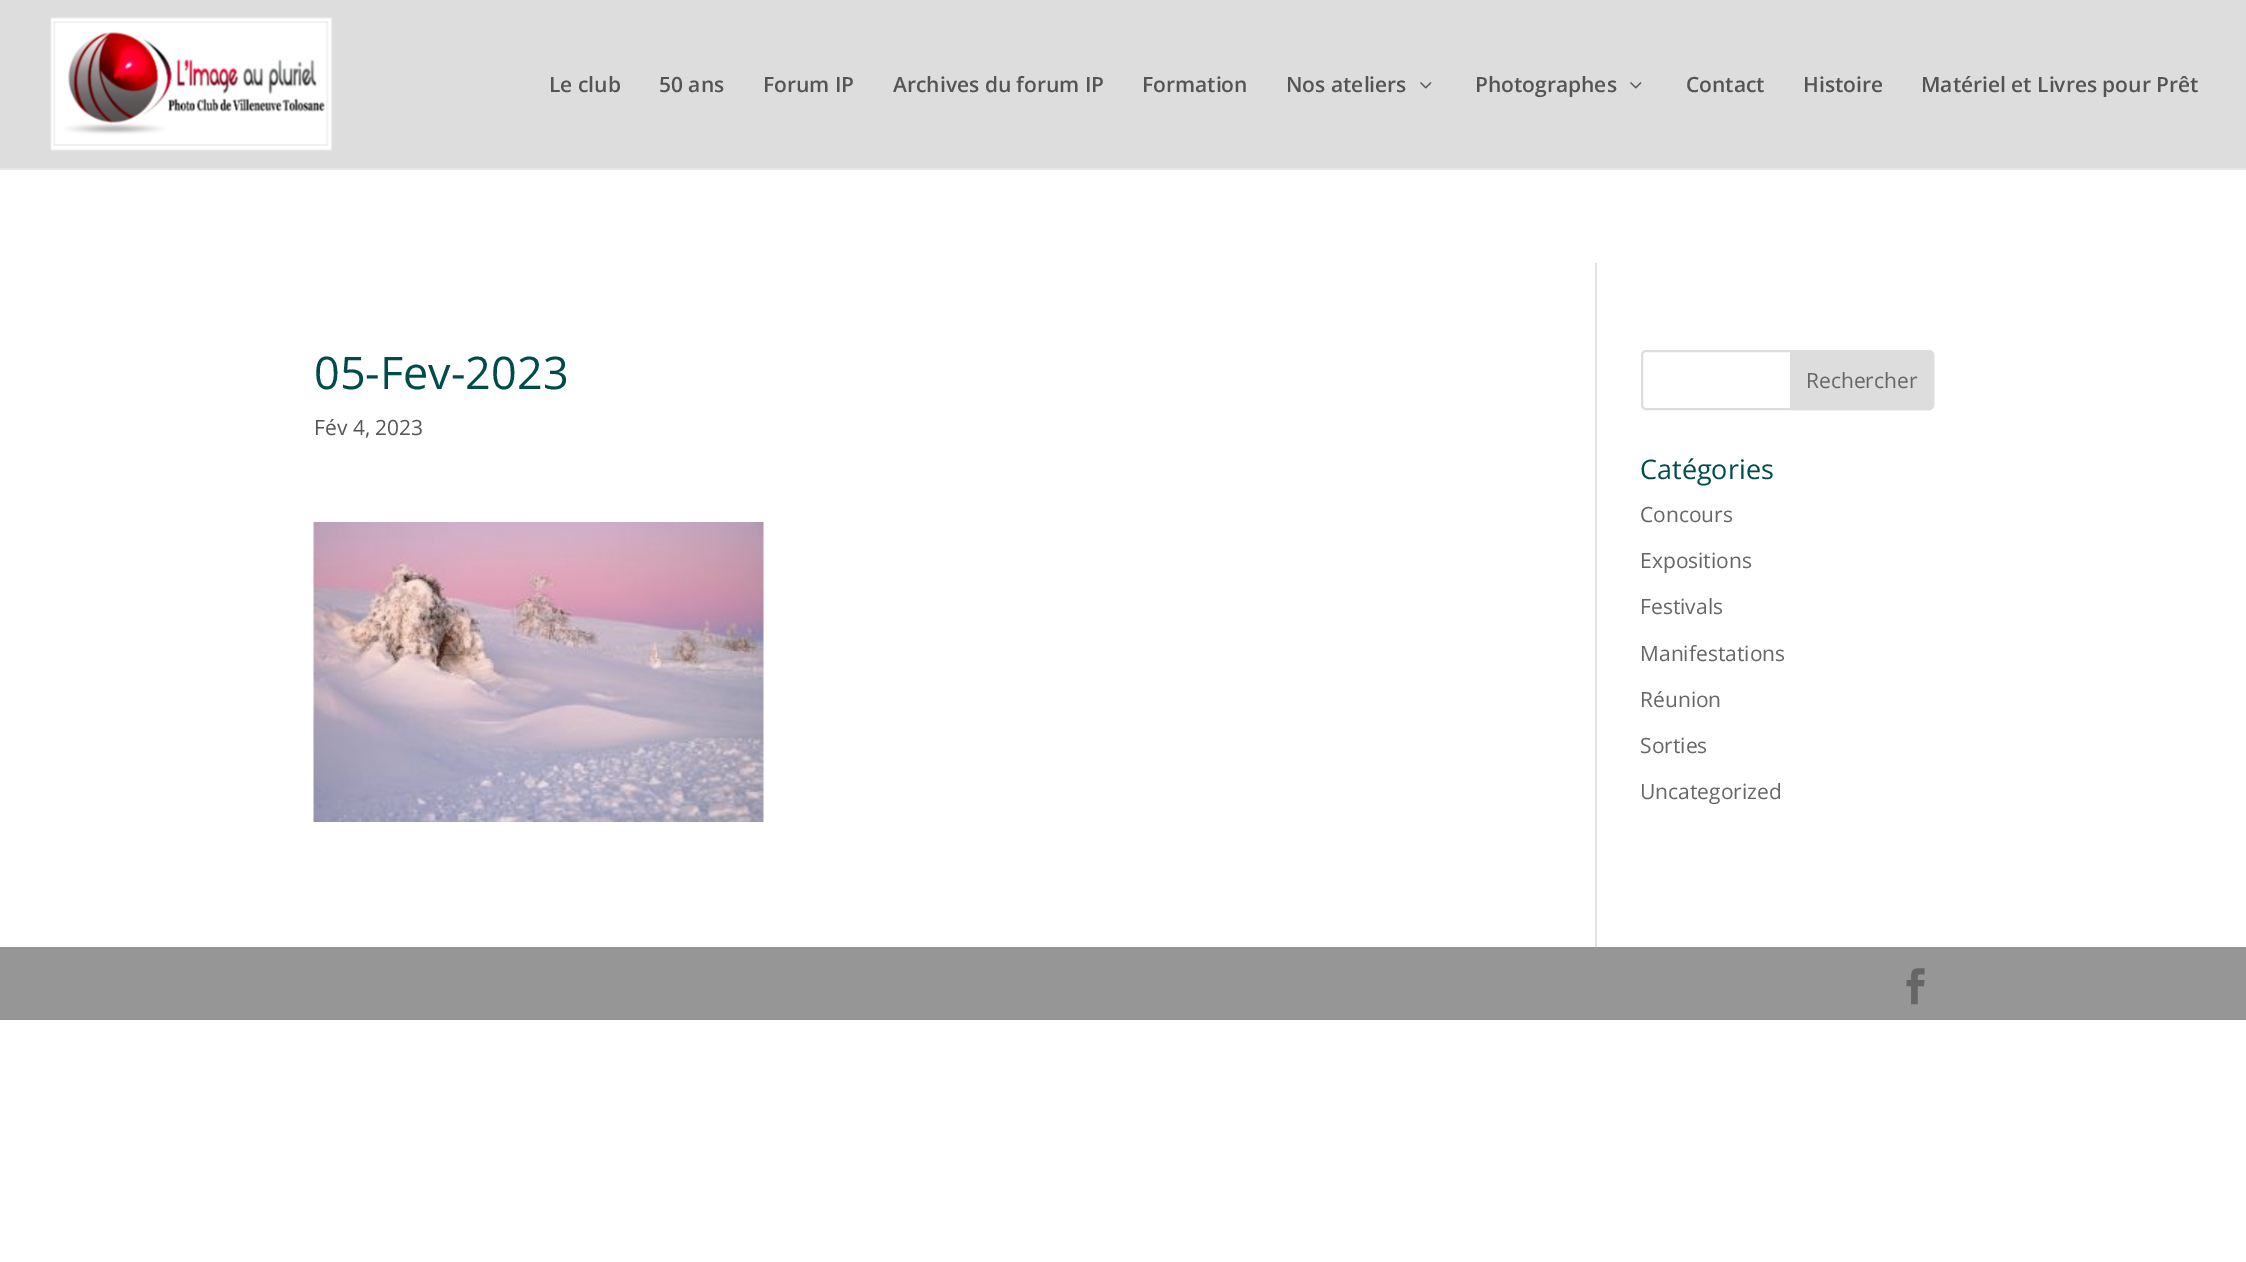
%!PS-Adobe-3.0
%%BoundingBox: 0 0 2246 1262
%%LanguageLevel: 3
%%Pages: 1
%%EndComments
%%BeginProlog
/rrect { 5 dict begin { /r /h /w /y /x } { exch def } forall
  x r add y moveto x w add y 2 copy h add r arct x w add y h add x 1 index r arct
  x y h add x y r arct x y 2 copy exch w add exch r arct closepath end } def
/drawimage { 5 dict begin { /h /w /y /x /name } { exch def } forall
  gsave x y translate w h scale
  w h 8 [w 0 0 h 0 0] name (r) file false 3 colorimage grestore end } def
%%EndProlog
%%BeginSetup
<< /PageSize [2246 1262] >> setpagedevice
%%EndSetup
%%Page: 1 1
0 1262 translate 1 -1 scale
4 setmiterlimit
1 setgray
0 0 2246 1262 rectfill
0.902 setgray
0 168 2246 2 rectfill
0.867 setgray
0 0 2246 168 rectfill
(images/1.raw) 50 17 282 134 drawimage
(images/2.raw) 1420 82 12 7 drawimage
(images/2.raw) 1630 82 12 7 drawimage
0.886 setgray
1595 263 2 684 rectfill
(images/3.raw) 313 522 451 300 drawimage
0.867 setgray
2 setlinewidth
1642 351 291 58 4 rrect stroke
newpath 1791 351 moveto 1929 351 lineto 1931 351 1933 353 1933 355 curveto 1933 405 lineto 1933 407 1931 409 1929 409 curveto 1791 409 lineto closepath gsave fill grestore
stroke
0.588 setgray
0 947 2246 73 rectfill
(images/4.raw) 1906 968 19 37 drawimage
/OpenSans-SemiBold [21 0 0 -21 0 0] selectfont
0.329 setgray
549 92 moveto (Le club) show
659 92 moveto (50 ans) show
763 92 moveto (Forum IP) show
893 92 moveto (Archives du forum IP) show
1142 92 moveto (Formation) show
1286 92 moveto (Nos ateliers) show
1475 92 moveto (Photographes) show
1686 92 moveto (Contact) show
1803 92 moveto (Histoire) show
1921 92 moveto (Matériel et Livres pour Prêt) show
/OpenSans-Regular [45 0 0 -45 0 0] selectfont
0 0.298 0.298 setrgbcolor
314 389 moveto (05-Fev-2023) show
/OpenSans-Regular [21 0 0 -21 0 0] selectfont
0.329 setgray
314 435 moveto (Fév 4, 2023) show
0.4 setgray
1806 388 moveto (Rechercher) show
/OpenSans-Regular [27 0 0 -27 0 0] selectfont
0 0.298 0.298 setrgbcolor
1640 479 moveto (Catégories) show
/OpenSans-Regular [21 0 0 -21 0 0] selectfont
0.4 setgray
1640 522 moveto (Concours) show
1640 568 moveto (Expositions) show
1640 614 moveto (Festivals) show
1640 661 moveto (Manifestations) show
1640 707 moveto (Réunion) show
1640 753 moveto (Sorties) show
1640 799 moveto (Uncategorized) show
showpage
%%EOF
